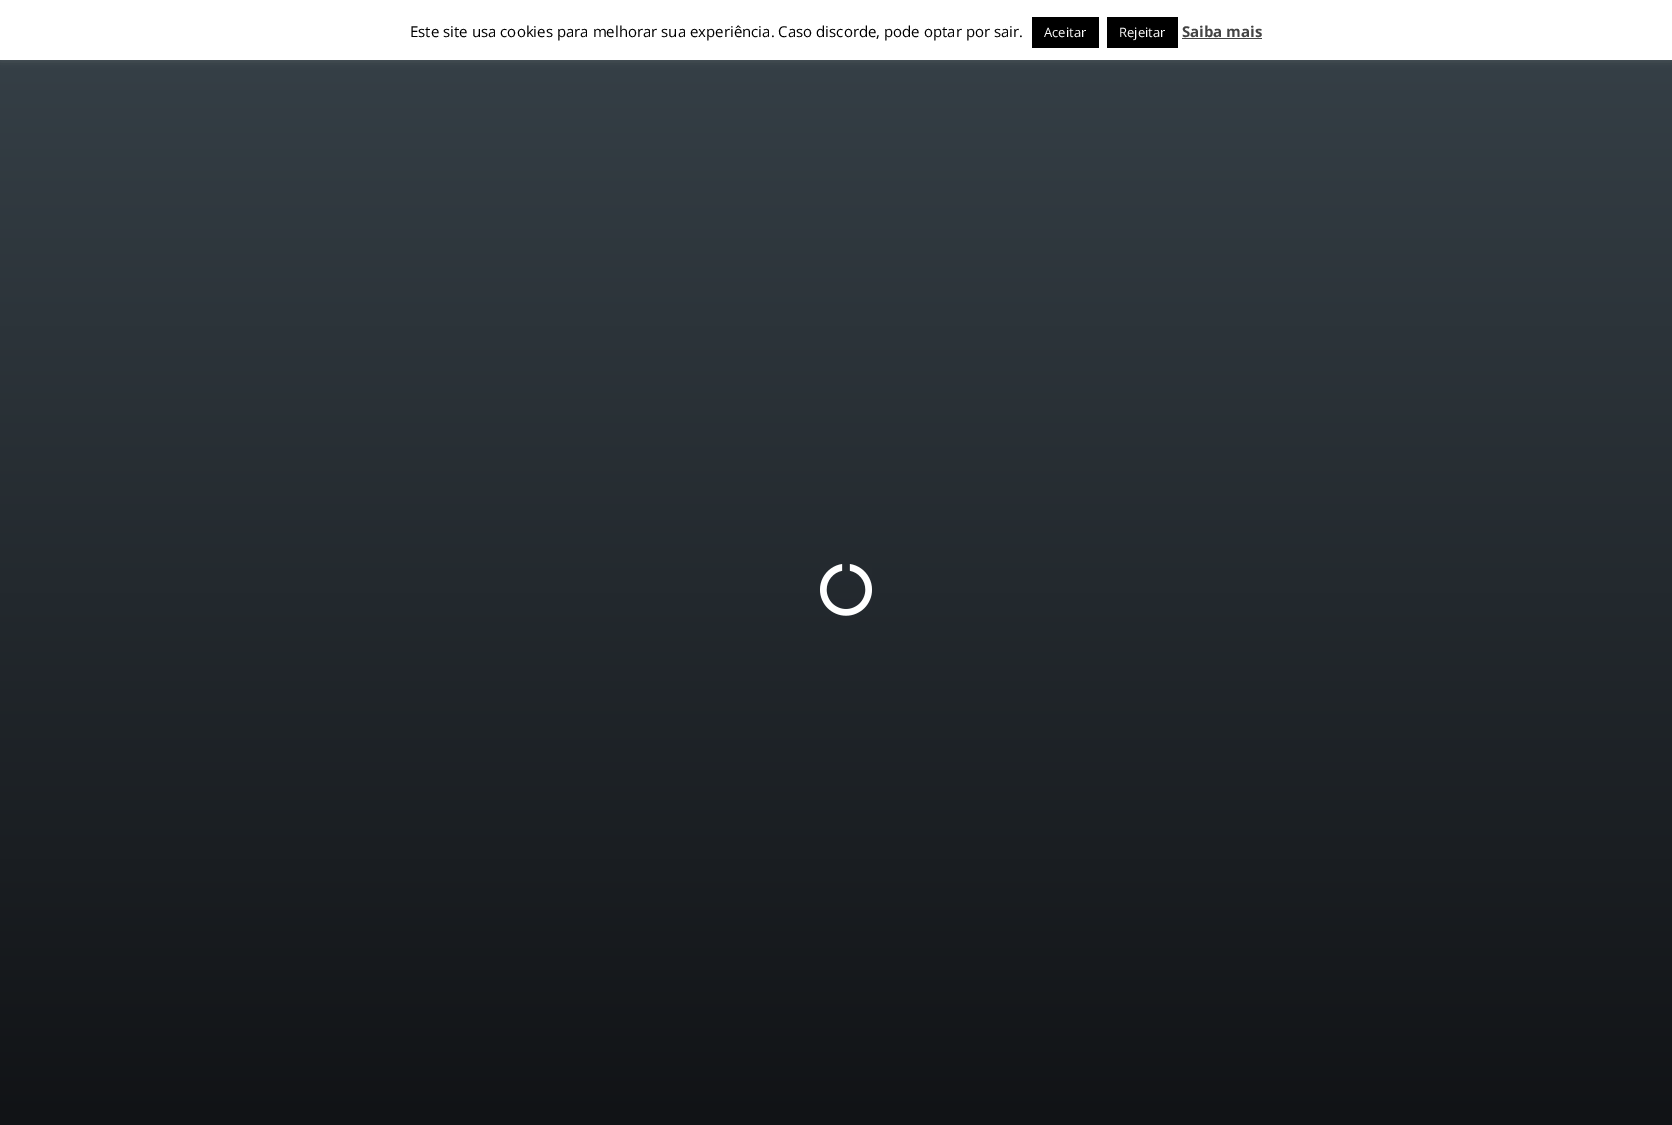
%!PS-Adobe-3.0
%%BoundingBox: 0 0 1672 1125
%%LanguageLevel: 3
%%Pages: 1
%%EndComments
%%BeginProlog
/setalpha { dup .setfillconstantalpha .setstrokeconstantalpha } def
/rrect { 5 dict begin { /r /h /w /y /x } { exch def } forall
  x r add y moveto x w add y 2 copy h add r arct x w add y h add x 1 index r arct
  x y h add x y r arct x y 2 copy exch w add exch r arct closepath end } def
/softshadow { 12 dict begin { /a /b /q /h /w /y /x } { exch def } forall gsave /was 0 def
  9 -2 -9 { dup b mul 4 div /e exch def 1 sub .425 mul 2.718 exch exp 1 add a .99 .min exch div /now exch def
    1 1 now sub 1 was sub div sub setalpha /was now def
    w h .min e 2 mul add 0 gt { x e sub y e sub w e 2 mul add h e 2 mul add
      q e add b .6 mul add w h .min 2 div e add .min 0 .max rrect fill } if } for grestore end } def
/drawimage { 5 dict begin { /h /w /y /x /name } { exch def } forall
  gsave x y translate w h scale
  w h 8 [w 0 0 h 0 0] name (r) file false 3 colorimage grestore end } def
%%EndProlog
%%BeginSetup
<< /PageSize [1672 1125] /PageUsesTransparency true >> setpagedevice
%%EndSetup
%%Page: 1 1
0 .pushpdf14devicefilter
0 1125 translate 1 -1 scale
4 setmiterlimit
1 setgray
0 0 1672 1125 rectfill
gsave newpath 0 60 moveto 1672 60 lineto 1672 1125 lineto 0 1125 lineto closepath clip newpath
<< /ShadingType 2 /ColorSpace /DeviceRGB /Coords [836 0 836 1125] /Extend [true true] /Function << /FunctionType 2 /Domain [0 1] /C0 [0.216 0.255 0.286] /C1 [0.067 0.075 0.086] /N 1 >> >> shfill grestore
0.675 0.671 0.671 setrgbcolor
0 -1 1672 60 0 5 0.3 softshadow
1 setgray
0 0 1672 60 rectfill
0 setgray
1032 17 67 31 rectfill
1107 17 71 31 rectfill
0.267 setgray
1182 38 80 1 rectfill
(images/1.raw) 820 564 52 52 drawimage
/OpenSans-Regular [15 0 0 -15 0 0] selectfont
0 setgray
410 37 moveto (Este site usa cookies para melhorar sua experiência. Caso discorde, pode optar por sair.) show
/OpenSans-Regular [13 0 0 -13 0 0] selectfont
1 setgray
1044 37 moveto (Aceitar) show
1119 37 moveto (Rejeitar) show
/OpenSans-Bold [15 0 0 -15 0 0] selectfont
0.267 setgray
1182 37 moveto (Saiba mais) show
.poppdf14devicefilter showpage
%%EOF
